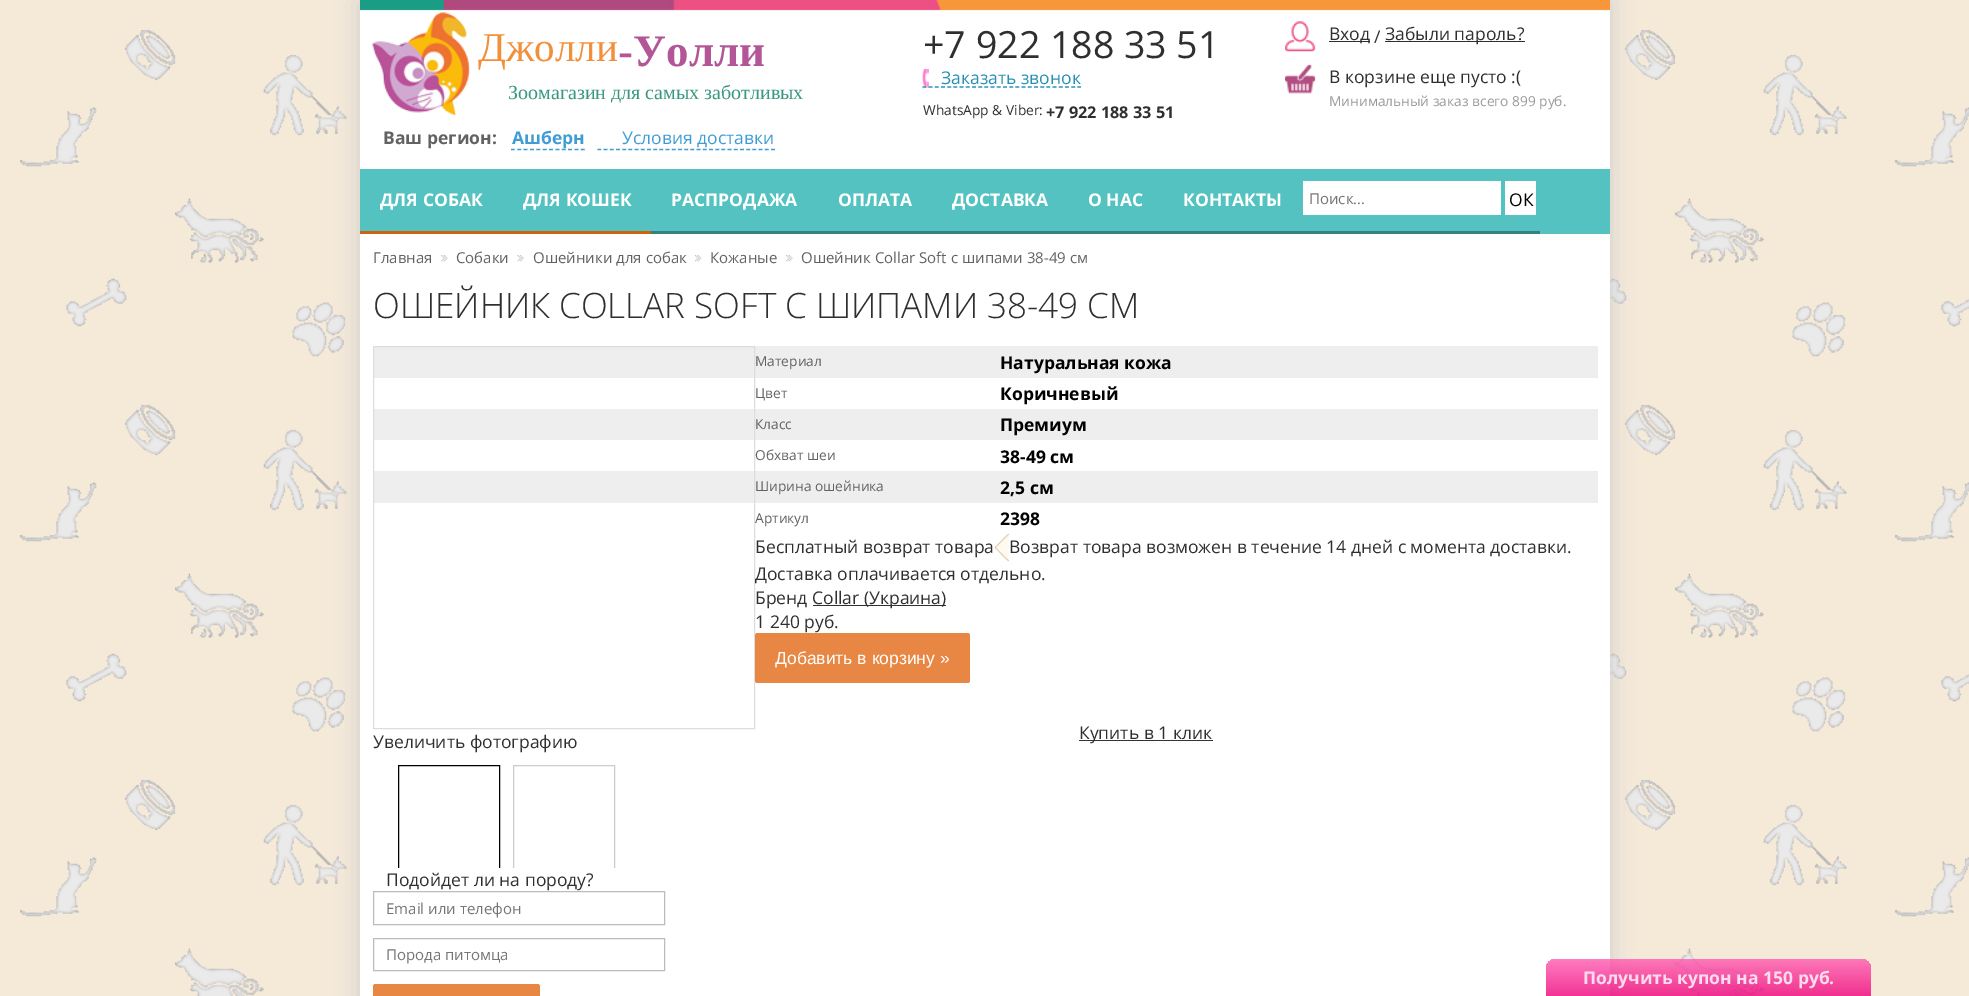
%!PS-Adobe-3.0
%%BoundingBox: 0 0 1969 996
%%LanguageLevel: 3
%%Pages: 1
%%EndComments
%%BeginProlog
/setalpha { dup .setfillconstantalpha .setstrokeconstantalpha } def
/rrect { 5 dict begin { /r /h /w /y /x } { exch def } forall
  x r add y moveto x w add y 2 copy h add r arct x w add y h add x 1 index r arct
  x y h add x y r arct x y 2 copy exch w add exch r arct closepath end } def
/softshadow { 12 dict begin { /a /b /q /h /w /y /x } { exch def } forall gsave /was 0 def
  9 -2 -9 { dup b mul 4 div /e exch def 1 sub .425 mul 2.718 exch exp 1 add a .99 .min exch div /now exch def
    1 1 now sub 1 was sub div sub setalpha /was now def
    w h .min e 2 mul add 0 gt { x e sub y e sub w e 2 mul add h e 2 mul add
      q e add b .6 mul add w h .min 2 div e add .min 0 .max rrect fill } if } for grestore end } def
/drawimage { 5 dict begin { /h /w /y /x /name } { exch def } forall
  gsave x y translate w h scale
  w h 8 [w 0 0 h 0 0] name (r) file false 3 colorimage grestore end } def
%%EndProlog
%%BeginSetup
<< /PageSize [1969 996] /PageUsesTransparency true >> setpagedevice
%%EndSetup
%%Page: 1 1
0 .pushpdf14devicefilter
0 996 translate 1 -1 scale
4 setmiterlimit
0.961 0.914 0.847 setrgbcolor
0 0 1969 996 rectfill
(images/1.raw) 20 30 1949 966 drawimage
0.8 setgray
360 0 1250 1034 0 12.5 1 softshadow
1 setgray
360 9 1250 987 rectfill
(images/2.raw) 360 0 1250 11 drawimage
(images/3.raw) 372 12 98 103 drawimage
(images/4.raw) 922 68 7 20 drawimage
0.149 0.569 0.706 setrgbcolor
1.2 setlinewidth
[3.75 2.45] 0 setdash
newpath 922.5 87 moveto 1081 87 lineto stroke
(images/5.raw) 1285 21 31 31 drawimage
0.184 setgray
1329 41 41 1 rectfill
1385 41 140 1 rectfill
(images/6.raw) 1285 63 31 31 drawimage
0.247 0.616 0.831 setrgbcolor
[3.75 2.61] 0 setdash
newpath 511 149.5 moveto 585 149.5 lineto stroke
[3.75 2.45] 0 setdash
newpath 597.5 149.5 moveto 775 149.5 lineto stroke
0.329 0.761 0.757 setrgbcolor
360 169 1250 65 rectfill
0.808 0.388 0.059 setrgbcolor
360 231 291 3 rectfill
0.208 0.506 0.502 setrgbcolor
651 231 889 3 rectfill
1 setgray
1303 181 198 34 rectfill
1505 181 31 34 rectfill
(images/7.raw) 441 255 7 7 drawimage
(images/8.raw) 517 255 7 7 drawimage
(images/9.raw) 695 255 7 7 drawimage
(images/7.raw) 786 255 7 7 drawimage
0.933 setgray
374 346 1224 32 rectfill
374 409 1224 31 rectfill
374 471 1224 32 rectfill
0.867 setgray
1 setlinewidth
[] 0 setdash
373.5 346.5 381 382 rectstroke
(images/10.raw) 994 533 15 29 drawimage
0.184 setgray
813 605 133 1 rectfill
0.91 0.525 0.263 setrgbcolor
755 633 215 50 2.5 rrect fill
0.2 setgray
1079 740 134 1 rectfill
0.737 setgray
373.5 891.5 291 33 rectstroke
373.5 938.5 291 32 rectstroke
0.91 0.525 0.263 setrgbcolor
373 984 167 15 2.5 rrect fill
0.8 setalpha
gsave newpath 1556 959 moveto 1861 959 lineto 1866.5 959 1871 963.5 1871 969 curveto 1871 996 lineto 1546 996 lineto 1546 969 lineto 1546 963.5 1550.5 959 1556 959 curveto closepath clip newpath
<< /ShadingType 2 /ColorSpace /DeviceRGB /Coords [1709 959 1709 996] /Extend [true true] /Function << /FunctionType 2 /Domain [0 1] /C0 [1 0.365 0.694] /C1 [0.937 0.004 0.486] /N 1 >> >> shfill grestore
/LiberationSerif-Regular [41 0 0 -41 0 0] selectfont
1 setalpha
0.945 0.561 0.227 setrgbcolor
478 61 moveto (Джолли) show
/LiberationSerif-Bold [45 0 0 -45 0 0] selectfont
0.698 0.337 0.592 setrgbcolor
618 66 moveto (-Уолли) show
/LiberationSerif-Regular [20 0 0 -20 0 0] selectfont
0.224 0.596 0.502 setrgbcolor
508 99 moveto (Зоомагазин для самых заботливых) show
/OpenSans-Regular [37.5 0 0 -37.5 0 0] selectfont
0.184 setgray
923 58 moveto (+7 922 188 33 51) show
/OpenSans-Regular [17.5 0 0 -17.5 0 0] selectfont
0.149 0.569 0.706 setrgbcolor
941 84 moveto (Заказать звонок) show
/OpenSans-Regular [13.75 0 0 -13.75 0 0] selectfont
0.184 setgray
923 115 moveto (WhatsApp & Viber:) show
/OpenSans-Bold [16.25 0 0 -16.25 0 0] selectfont
1046 118 moveto (+7 922 188 33 51) show
/OpenSans-Regular [17.5 0 0 -17.5 0 0] selectfont
1329 40 moveto (Вход) show
1374 43 moveto (/) show
1385 40 moveto (Забыли пароль?) show
1329 83 moveto (В корзине еще пусто :\() show
/OpenSans-Regular [13.75 0 0 -13.75 0 0] selectfont
0.6 setgray
1329 106 moveto (Минимальный заказ всего 899 руб.) show
/OpenSans-Bold [17.5 0 0 -17.5 0 0] selectfont
0.384 setgray
383 144 moveto (Ваш регион:) show
0.247 0.616 0.831 setrgbcolor
512 144 moveto (Ашберн) show
/OpenSans-Regular [17.5 0 0 -17.5 0 0] selectfont
622 144 moveto (Условия доставки) show
/OpenSans-Bold [17.5 0 0 -17.5 0 0] selectfont
1 setgray
380 206 moveto (ДЛЯ СОБАК) show
523 206 moveto (ДЛЯ КОШЕК) show
671 206 moveto (РАСПРОДАЖА) show
838 206 moveto (ОПЛАТА) show
952 206 moveto (ДОСТАВКА) show
1088 206 moveto (О НАС) show
1183 206 moveto (КОНТАКТЫ) show
/OpenSans-Regular [15 0 0 -15 0 0] selectfont
0.459 setgray
1309 204 moveto (Поиск...) show
/OpenSans-Regular [17.5 0 0 -17.5 0 0] selectfont
0 setgray
1509 206 moveto (ОК) show
/OpenSans-Regular [15 0 0 -15 0 0] selectfont
0.384 setgray
373 263 moveto (Главная) show
456 263 moveto (Собаки) show
533 263 moveto (Ошейники для собак) show
710 263 moveto (Кожаные) show
801 263 moveto (Ошейник Collar Soft с шипами 38-49 см) show
/OpenSans-Light [35 0 0 -35 0 0] selectfont
0.184 setgray
373 318 moveto (ОШЕЙНИК COLLAR SOFT С ШИПАМИ 38-49 СМ) show
/OpenSans-Regular [17.5 0 0 -17.5 0 0] selectfont
373 748 moveto (Увеличить фотографию) show
/OpenSans-Regular [13.75 0 0 -13.75 0 0] selectfont
0.384 setgray
755 366 moveto (Материал) show
/OpenSans-Bold [17.5 0 0 -17.5 0 0] selectfont
0 setgray
1000 369 moveto (Натуральная кожа) show
/OpenSans-Regular [13.75 0 0 -13.75 0 0] selectfont
0.384 setgray
755 398 moveto (Цвет) show
/OpenSans-Bold [17.5 0 0 -17.5 0 0] selectfont
0 setgray
1000 400 moveto (Коричневый) show
/OpenSans-Regular [13.75 0 0 -13.75 0 0] selectfont
0.384 setgray
755 429 moveto (Класс) show
/OpenSans-Bold [17.5 0 0 -17.5 0 0] selectfont
0 setgray
1000 431 moveto (Премиум) show
/OpenSans-Regular [13.75 0 0 -13.75 0 0] selectfont
0.384 setgray
755 460 moveto (Обхват шеи) show
/OpenSans-Bold [17.5 0 0 -17.5 0 0] selectfont
0 setgray
1000 463 moveto (38-49 см) show
/OpenSans-Regular [13.75 0 0 -13.75 0 0] selectfont
0.384 setgray
755 491 moveto (Ширина ошейника) show
/OpenSans-Bold [17.5 0 0 -17.5 0 0] selectfont
0 setgray
1000 494 moveto (2,5 см) show
/OpenSans-Regular [13.75 0 0 -13.75 0 0] selectfont
0.384 setgray
755 523 moveto (Артикул) show
/OpenSans-Bold [17.5 0 0 -17.5 0 0] selectfont
0 setgray
1000 525 moveto (2398) show
/OpenSans-Regular [17.5 0 0 -17.5 0 0] selectfont
0.184 setgray
755 553 moveto (Бесплатный возврат товара) show
1009 553 moveto (Возврат товара возможен в течение 14 дней с момента доставки.) show
755 580 moveto (Доставка оплачивается отдельно.) show
755 604 moveto (Бренд) show
812 604 moveto (Collar \(Украина\)) show
755 628 moveto (1 240 руб.) show
/LiberationSans-Regular [17.5 0 0 -17.5 0 0] selectfont
1 setgray
775 664 moveto (Добавить в корзину ») show
/OpenSans-Regular [17.5 0 0 -17.5 0 0] selectfont
0.184 setgray
1079 739 moveto (Купить в 1 клик) show
386 886 moveto (Подойдет ли на породу?) show
gsave
398 765 332 103 rectclip
0.8 setgray
513.5 765.5 101 117 rectstroke
0 setgray
398.5 765.5 101 117 rectstroke
grestore
/OpenSans-Regular [15 0 0 -15 0 0] selectfont
0.459 setgray
386 914 moveto (Email или телефон) show
386 960 moveto (Порода питомца) show
/OpenSans-Bold [17.5 0 0 -17.5 0 0] selectfont
0.992 0.863 0.929 setrgbcolor
1583 984 moveto (Получить купон на 150 руб.) show
.poppdf14devicefilter showpage
%%EOF
